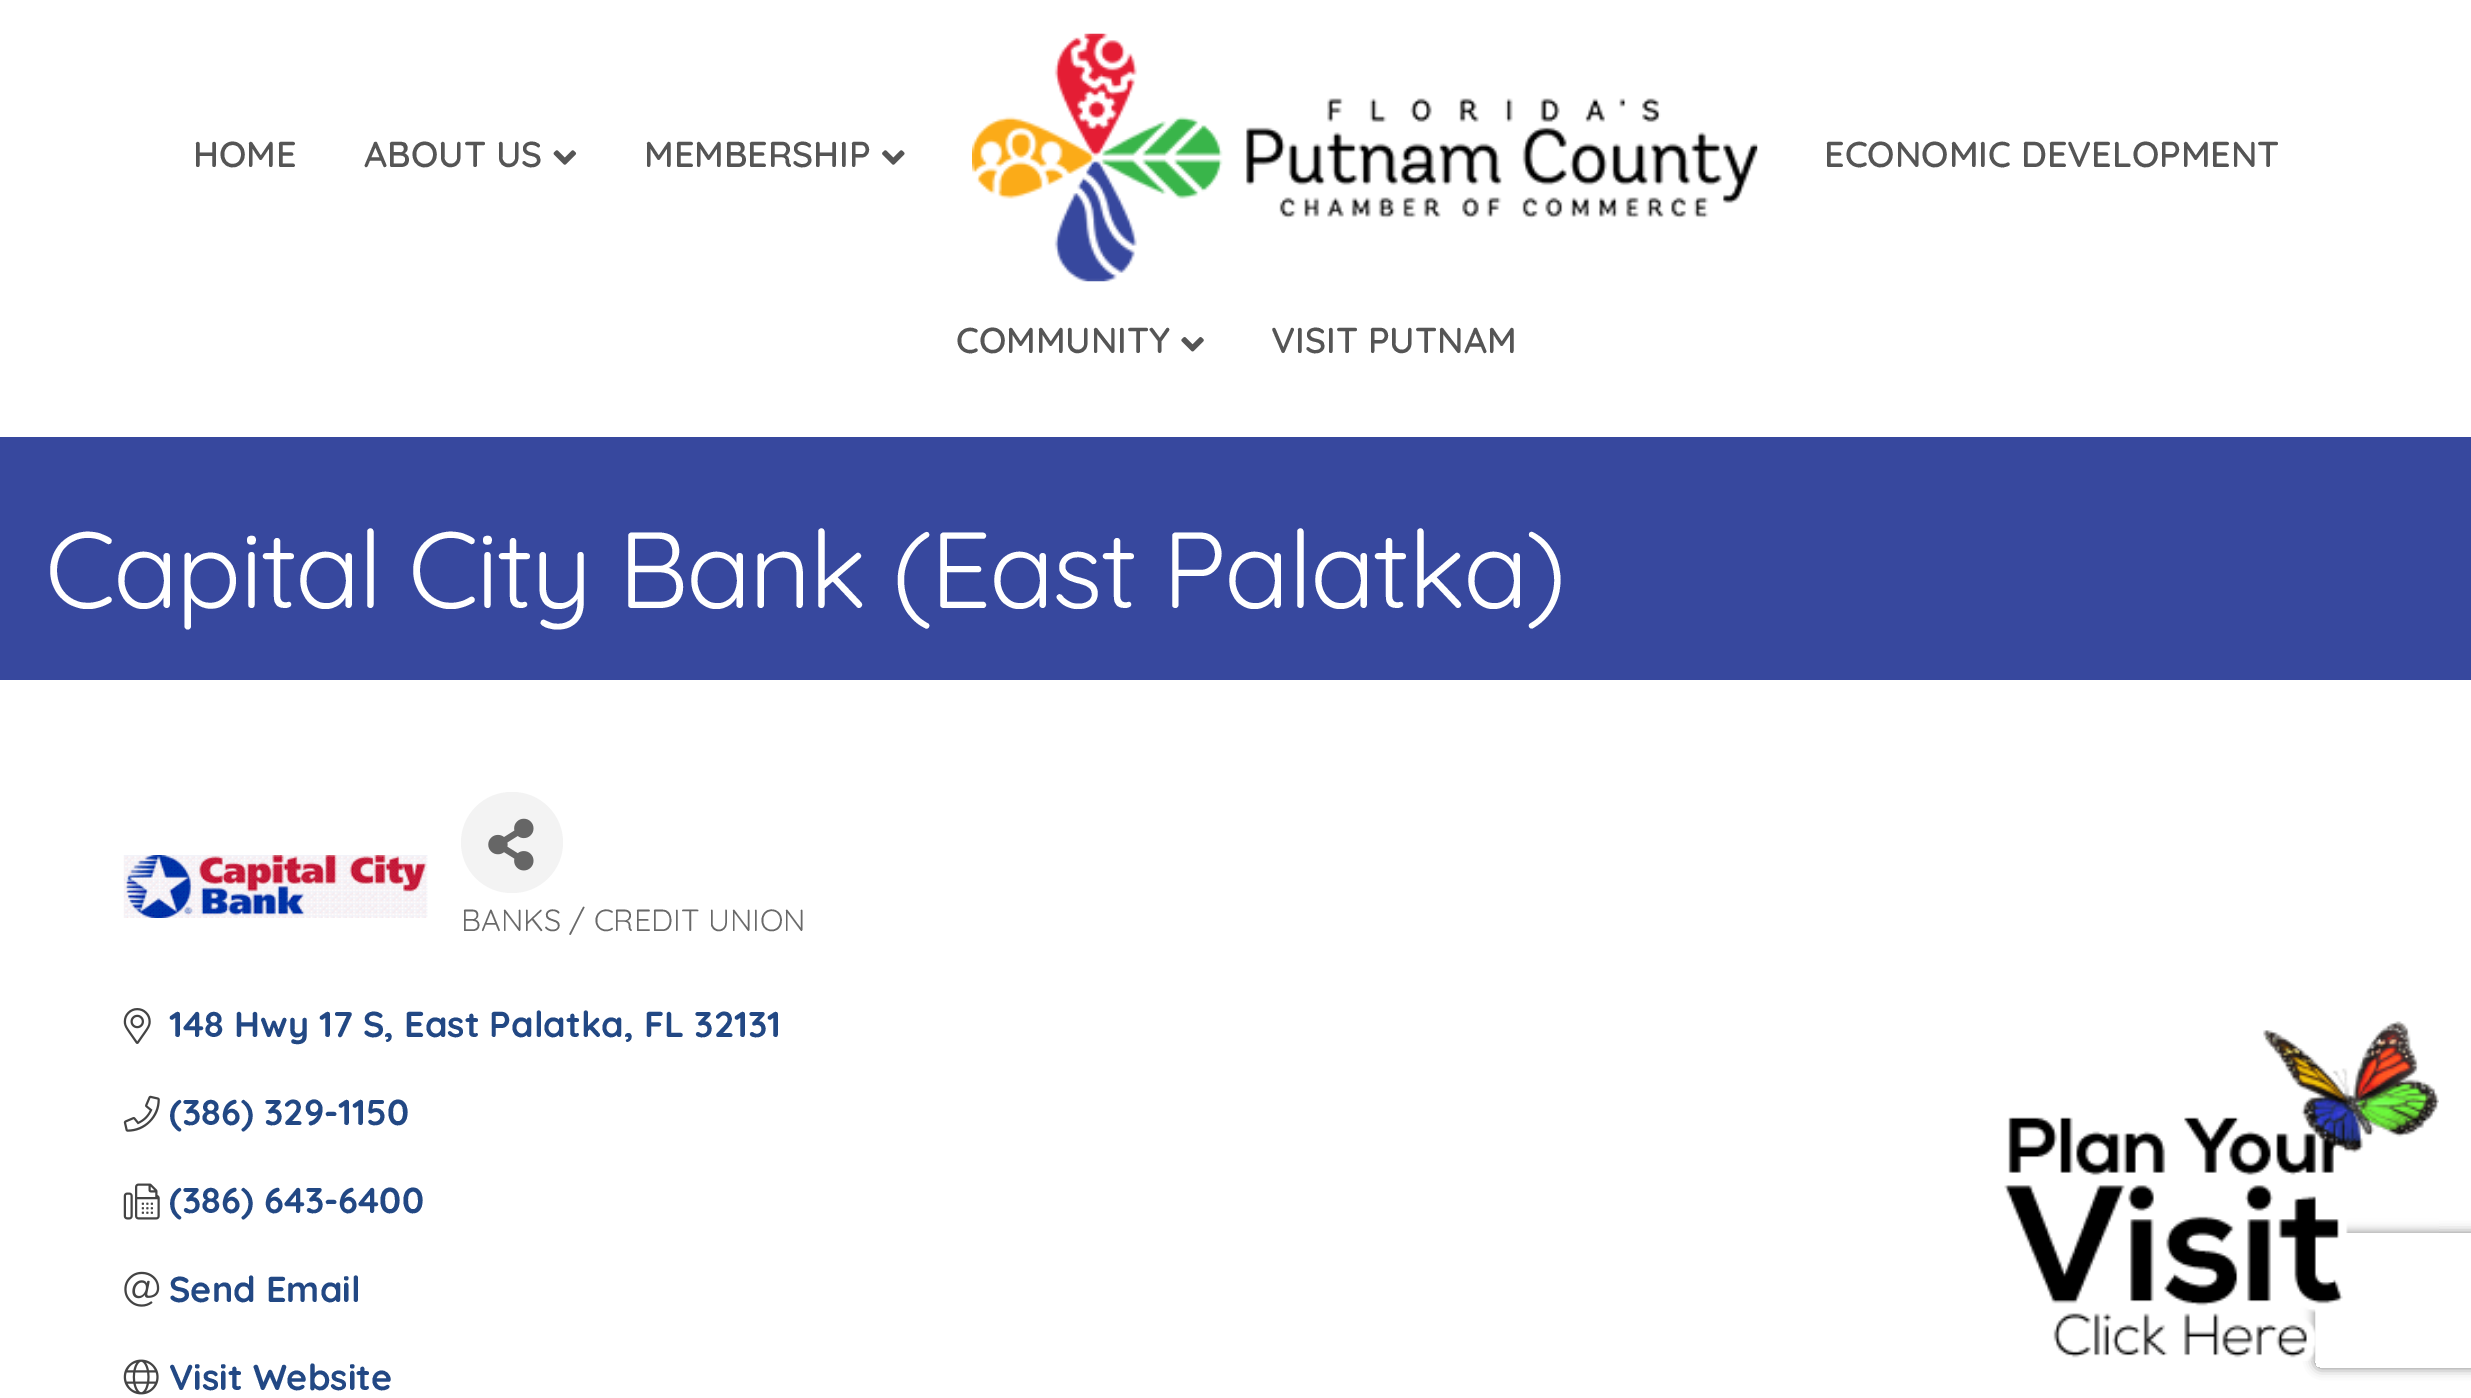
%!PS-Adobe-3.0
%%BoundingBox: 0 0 2471 1398
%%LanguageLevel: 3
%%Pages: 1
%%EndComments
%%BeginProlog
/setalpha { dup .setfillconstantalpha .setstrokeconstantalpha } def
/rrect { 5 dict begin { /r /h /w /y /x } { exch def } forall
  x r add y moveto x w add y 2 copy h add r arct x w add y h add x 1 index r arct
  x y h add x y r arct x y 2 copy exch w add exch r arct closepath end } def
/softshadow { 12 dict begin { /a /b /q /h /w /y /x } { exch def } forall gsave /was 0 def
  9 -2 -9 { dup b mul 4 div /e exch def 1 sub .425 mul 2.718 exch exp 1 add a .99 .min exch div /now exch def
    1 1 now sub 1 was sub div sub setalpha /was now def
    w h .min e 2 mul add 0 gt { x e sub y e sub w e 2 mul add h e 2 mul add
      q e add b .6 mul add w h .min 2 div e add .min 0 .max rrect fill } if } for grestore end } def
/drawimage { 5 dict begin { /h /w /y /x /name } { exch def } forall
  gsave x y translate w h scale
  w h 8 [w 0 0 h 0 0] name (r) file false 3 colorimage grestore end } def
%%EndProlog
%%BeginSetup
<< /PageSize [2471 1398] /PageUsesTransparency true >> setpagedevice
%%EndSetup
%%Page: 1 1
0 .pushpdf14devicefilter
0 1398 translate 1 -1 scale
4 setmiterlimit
1 setgray
0 0 2471 1398 rectfill
(images/1.raw) 553 150 24 15 drawimage
(images/2.raw) 882 150 23 15 drawimage
(images/3.raw) 972 33 786 249 drawimage
(images/4.raw) 1181 337 23 15 drawimage
0.216 0.282 0.62 setrgbcolor
0 437 2471 243 rectfill
(images/5.raw) 123 855 305 63 drawimage
0.953 setgray
461 792 102 101 50.5 rrect fill
(images/6.raw) 488 818 46 53 drawimage
(images/7.raw) 123 1008 28 36 drawimage
(images/8.raw) 123 1095 37 37 drawimage
(images/9.raw) 123 1183 37 37 drawimage
(images/10.raw) 124 1271 36 36 drawimage
(images/11.raw) 123 1359 36 36 drawimage
gsave
newpath 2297 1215 moveto 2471 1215 lineto 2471 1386 lineto 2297 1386 lineto closepath 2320 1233 moveto 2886 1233 lineto 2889 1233 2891 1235 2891 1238 curveto 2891 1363 lineto 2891 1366 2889 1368 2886 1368 curveto 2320 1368 lineto 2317 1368 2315 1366 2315 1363 curveto 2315 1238 lineto 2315 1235 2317 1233 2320 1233 curveto closepath eoclip newpath
0.502 setgray
2315 1233 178 135 5 5.5 1 softshadow
grestore
(images/12.raw) 2004 1021 435 340 drawimage
/Quicksand-SemiBold [36 0 0 -36 0 0] selectfont
0.333 setgray
193 167 moveto (HOME) show
364 167 moveto (ABOUT US) show
644 167 moveto (MEMBERSHIP) show
1824 167 moveto (ECONOMIC DEVELOPMENT) show
956 353 moveto (COMMUNITY) show
1271 353 moveto (VISIT PUTNAM) show
/Quicksand-Regular [108 0 0 -108 0 0] selectfont
1 setgray
45 608 moveto -2.25 0 (Capital City Bank \(East Palatka\)) ashow
/Quicksand-Regular [30.6 0 0 -30.6 0 0] selectfont
0.412 setgray
461 931 moveto (BANKS / CREDIT UNION) show
/Quicksand-Bold [36 0 0 -36 0 0] selectfont
0.133 0.282 0.518 setrgbcolor
169 1037 moveto (148 Hwy 17 S, East Palatka, FL 32131) show
169 1125 moveto (\(386\) 329-1150) show
169 1213 moveto (\(386\) 643-6400) show
169 1302 moveto (Send Email) show
169 1390 moveto (Visit Website) show
.poppdf14devicefilter showpage
%%EOF
